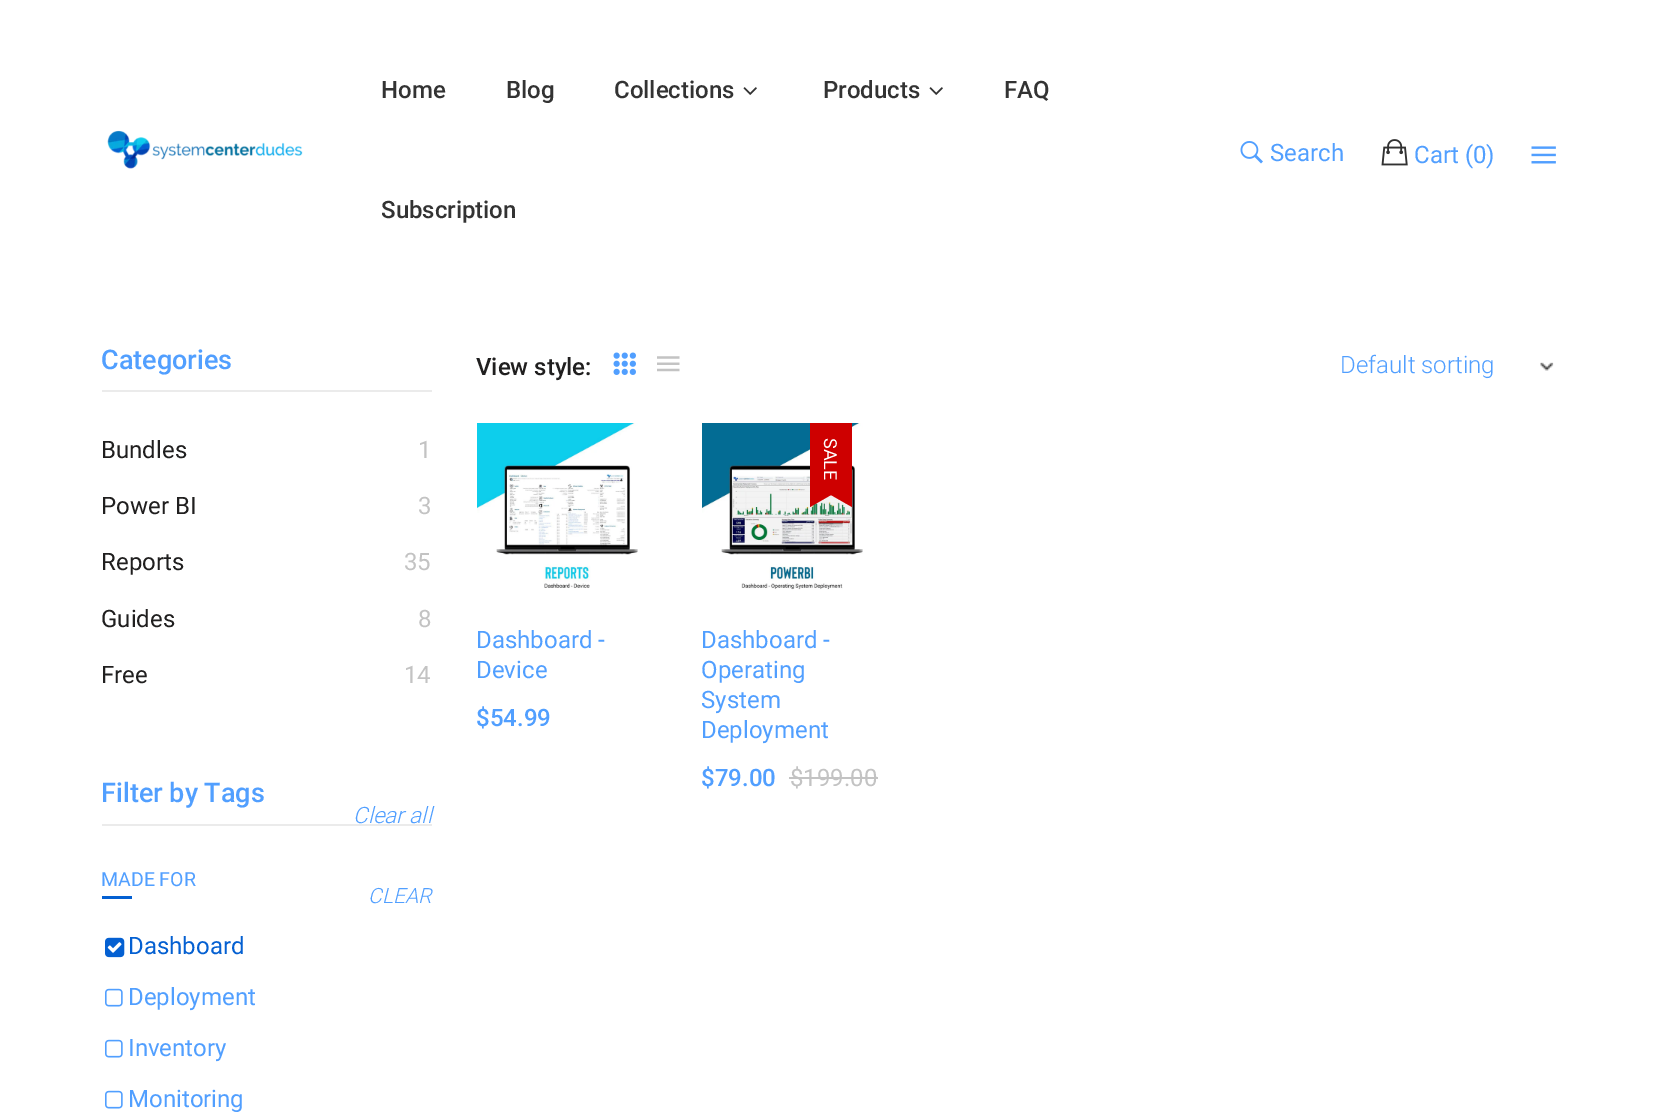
%!PS-Adobe-3.0
%%BoundingBox: 0 0 1657 1113
%%LanguageLevel: 3
%%Pages: 1
%%EndComments
%%BeginProlog
/drawimage { 5 dict begin { /h /w /y /x /name } { exch def } forall
  gsave x y translate w h scale
  w h 8 [w 0 0 h 0 0] name (r) file false 3 colorimage grestore end } def
%%EndProlog
%%BeginSetup
<< /PageSize [1657 1113] >> setpagedevice
%%EndSetup
%%Page: 1 1
0 1113 translate 1 -1 scale
4 setmiterlimit
1 setgray
0 0 1657 1113 rectfill
(images/1.raw) 107 130 196 39 drawimage
(images/2.raw) 743 87 14 8 drawimage
(images/2.raw) 929 87 14 8 drawimage
(images/3.raw) 1240 141 23 23 drawimage
(images/4.raw) 1381 139 27 27 drawimage
(images/5.raw) 1531 146 25 18 drawimage
0.922 setgray
102 390 330 2 rectfill
102 824 330 2 rectfill
0.016 0.376 0.824 setrgbcolor
102 896 30 3 rectfill
(images/6.raw) 105 937 20 21 drawimage
(images/7.raw) 105 988 18 19 drawimage
(images/7.raw) 105 1039 18 19 drawimage
(images/7.raw) 105 1090 18 19 drawimage
(images/8.raw) 613 352 23 23 drawimage
(images/9.raw) 657 356 23 16 drawimage
(images/10.raw) 1540 362 14 9 drawimage
(images/11.raw) 477 423 161 165 drawimage
(images/12.raw) 702 423 161 167 drawimage
0.808 0 0 setrgbcolor
810 423 42 72 rectfill
newpath 852 495 moveto 852 507 lineto 831 495 lineto closepath 810 507 moveto 810 495 lineto 831 495 lineto closepath fill
0.765 setgray
789 777 89 2 rectfill
/Roboto-Medium [24 0 0 -24 0 0] selectfont
0.2 setgray
381 98 moveto (Home) show
506 98 moveto (Blog) show
614 98 moveto (Collections) show
823 98 moveto (Products) show
1004 98 moveto (FAQ) show
381 218 moveto (Subscription) show
/Roboto-Regular [24 0 0 -24 0 0] selectfont
0.318 0.624 1 setrgbcolor
1270 161 moveto (Search) show
1414 163 moveto (Cart \(0\)) show
/Roboto-Medium [27 0 0 -27 0 0] selectfont
101 369 moveto (Categories) show
/Roboto-Regular [24 0 0 -24 0 0] selectfont
0.125 0.122 0.122 setrgbcolor
101 458 moveto (Bundles) show
0.765 setgray
418 458 moveto (1) show
0.125 0.122 0.122 setrgbcolor
101 514 moveto (Power BI) show
0.765 setgray
418 514 moveto (3) show
0.125 0.122 0.122 setrgbcolor
101 570 moveto (Reports) show
0.765 setgray
404 570 moveto (35) show
0.125 0.122 0.122 setrgbcolor
101 627 moveto (Guides) show
0.765 setgray
418 627 moveto (8) show
0.125 0.122 0.122 setrgbcolor
101 683 moveto (Free) show
0.765 setgray
404 683 moveto (14) show
/Roboto-Medium [27 0 0 -27 0 0] selectfont
0.318 0.624 1 setrgbcolor
101 802 moveto (Filter by Tags) show
/Roboto-LightItalic [22.5 0 0 -22.5 0 0] selectfont
353 823 moveto (Clear all) show
/Roboto-Regular [19.5 0 0 -19.5 0 0] selectfont
101 886 moveto (MADE FOR) show
/Roboto-LightItalic [21 0 0 -21 0 0] selectfont
368 903 moveto (CLEAR) show
/Roboto-Regular [24 0 0 -24 0 0] selectfont
0.016 0.376 0.824 setrgbcolor
128 954 moveto (Dashboard) show
0.318 0.624 1 setrgbcolor
128 1005 moveto (Deployment) show
128 1056 moveto (Inventory) show
128 1107 moveto (Monitoring) show
/Roboto-Medium [24 0 0 -24 0 0] selectfont
0.125 0.122 0.122 setrgbcolor
476 375 moveto (View style:) show
/Roboto-Light [24 0 0 -24 0 0] selectfont
0.318 0.624 1 setrgbcolor
1340 373 moveto (Default sorting) show
/Roboto-Regular [24 0 0 -24 0 0] selectfont
476 648 moveto (Dashboard -) show
476 678 moveto (Device) show
/Roboto-Medium [24 0 0 -24 0 0] selectfont
476 726 moveto ($54.99) show
/Roboto-Regular [18 0 0 -18 0 0] selectfont
1 setgray
gsave 824 438 translate 90 rotate 0 0 moveto (SALE) show grestore
/Roboto-Regular [24 0 0 -24 0 0] selectfont
0.318 0.624 1 setrgbcolor
701 648 moveto (Dashboard -) show
701 678 moveto (Operating) show
701 708 moveto (System) show
701 738 moveto (Deployment) show
/Roboto-Medium [24 0 0 -24 0 0] selectfont
701 786 moveto ($79.00) show
/Roboto-Regular [24 0 0 -24 0 0] selectfont
0.765 setgray
790 786 moveto ($199.00) show
showpage
%%EOF
